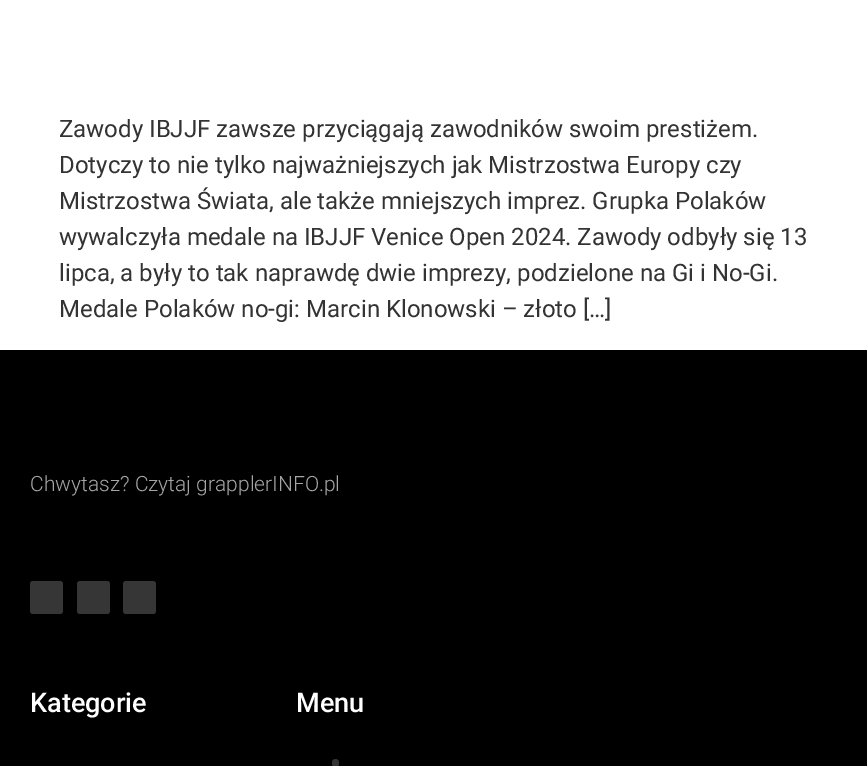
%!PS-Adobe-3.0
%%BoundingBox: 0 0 867 766
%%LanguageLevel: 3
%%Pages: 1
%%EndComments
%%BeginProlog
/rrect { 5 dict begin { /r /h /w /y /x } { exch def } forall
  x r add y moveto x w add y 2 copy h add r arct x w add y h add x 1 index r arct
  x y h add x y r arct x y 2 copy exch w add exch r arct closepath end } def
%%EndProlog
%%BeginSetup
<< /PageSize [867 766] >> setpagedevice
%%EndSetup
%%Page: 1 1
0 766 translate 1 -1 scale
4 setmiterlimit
1 setgray
0 0 867 766 rectfill
0 setgray
0 350 867 416 rectfill
0.212 setgray
30 581 33 33 3 rrect fill
77 581 33 33 3 rrect fill
123 581 33 33 3 rrect fill
0.2 setgray
332 759 7 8 3.5 rrect fill
/Roboto-Regular [24 0 0 -24 0 0] selectfont
59 137 moveto (Zawody IBJJF zawsze przyciągają zawodników swoim prestiżem.) show
59 173 moveto (Dotyczy to nie tylko najważniejszych jak Mistrzostwa Europy czy) show
59 209 moveto (Mistrzostwa Świata, ale także mniejszych imprez. Grupka Polaków) show
59 245 moveto (wywalczyła medale na IBJJF Venice Open 2024. Zawody odbyły się 13) show
59 281 moveto (lipca, a były to tak naprawdę dwie imprezy, podzielone na Gi i No-Gi.) show
59 317 moveto (Medale Polaków no-gi: Marcin Klonowski – złoto […]) show
/Roboto-Light [21 0 0 -21 0 0] selectfont
0.651 setgray
30 491 moveto (Chwytasz? Czytaj grapplerINFO.pl) show
/Roboto-Medium [27 0 0 -27 0 0] selectfont
1 setgray
30 712 moveto (Kategorie) show
296 712 moveto (Menu) show
showpage
%%EOF
